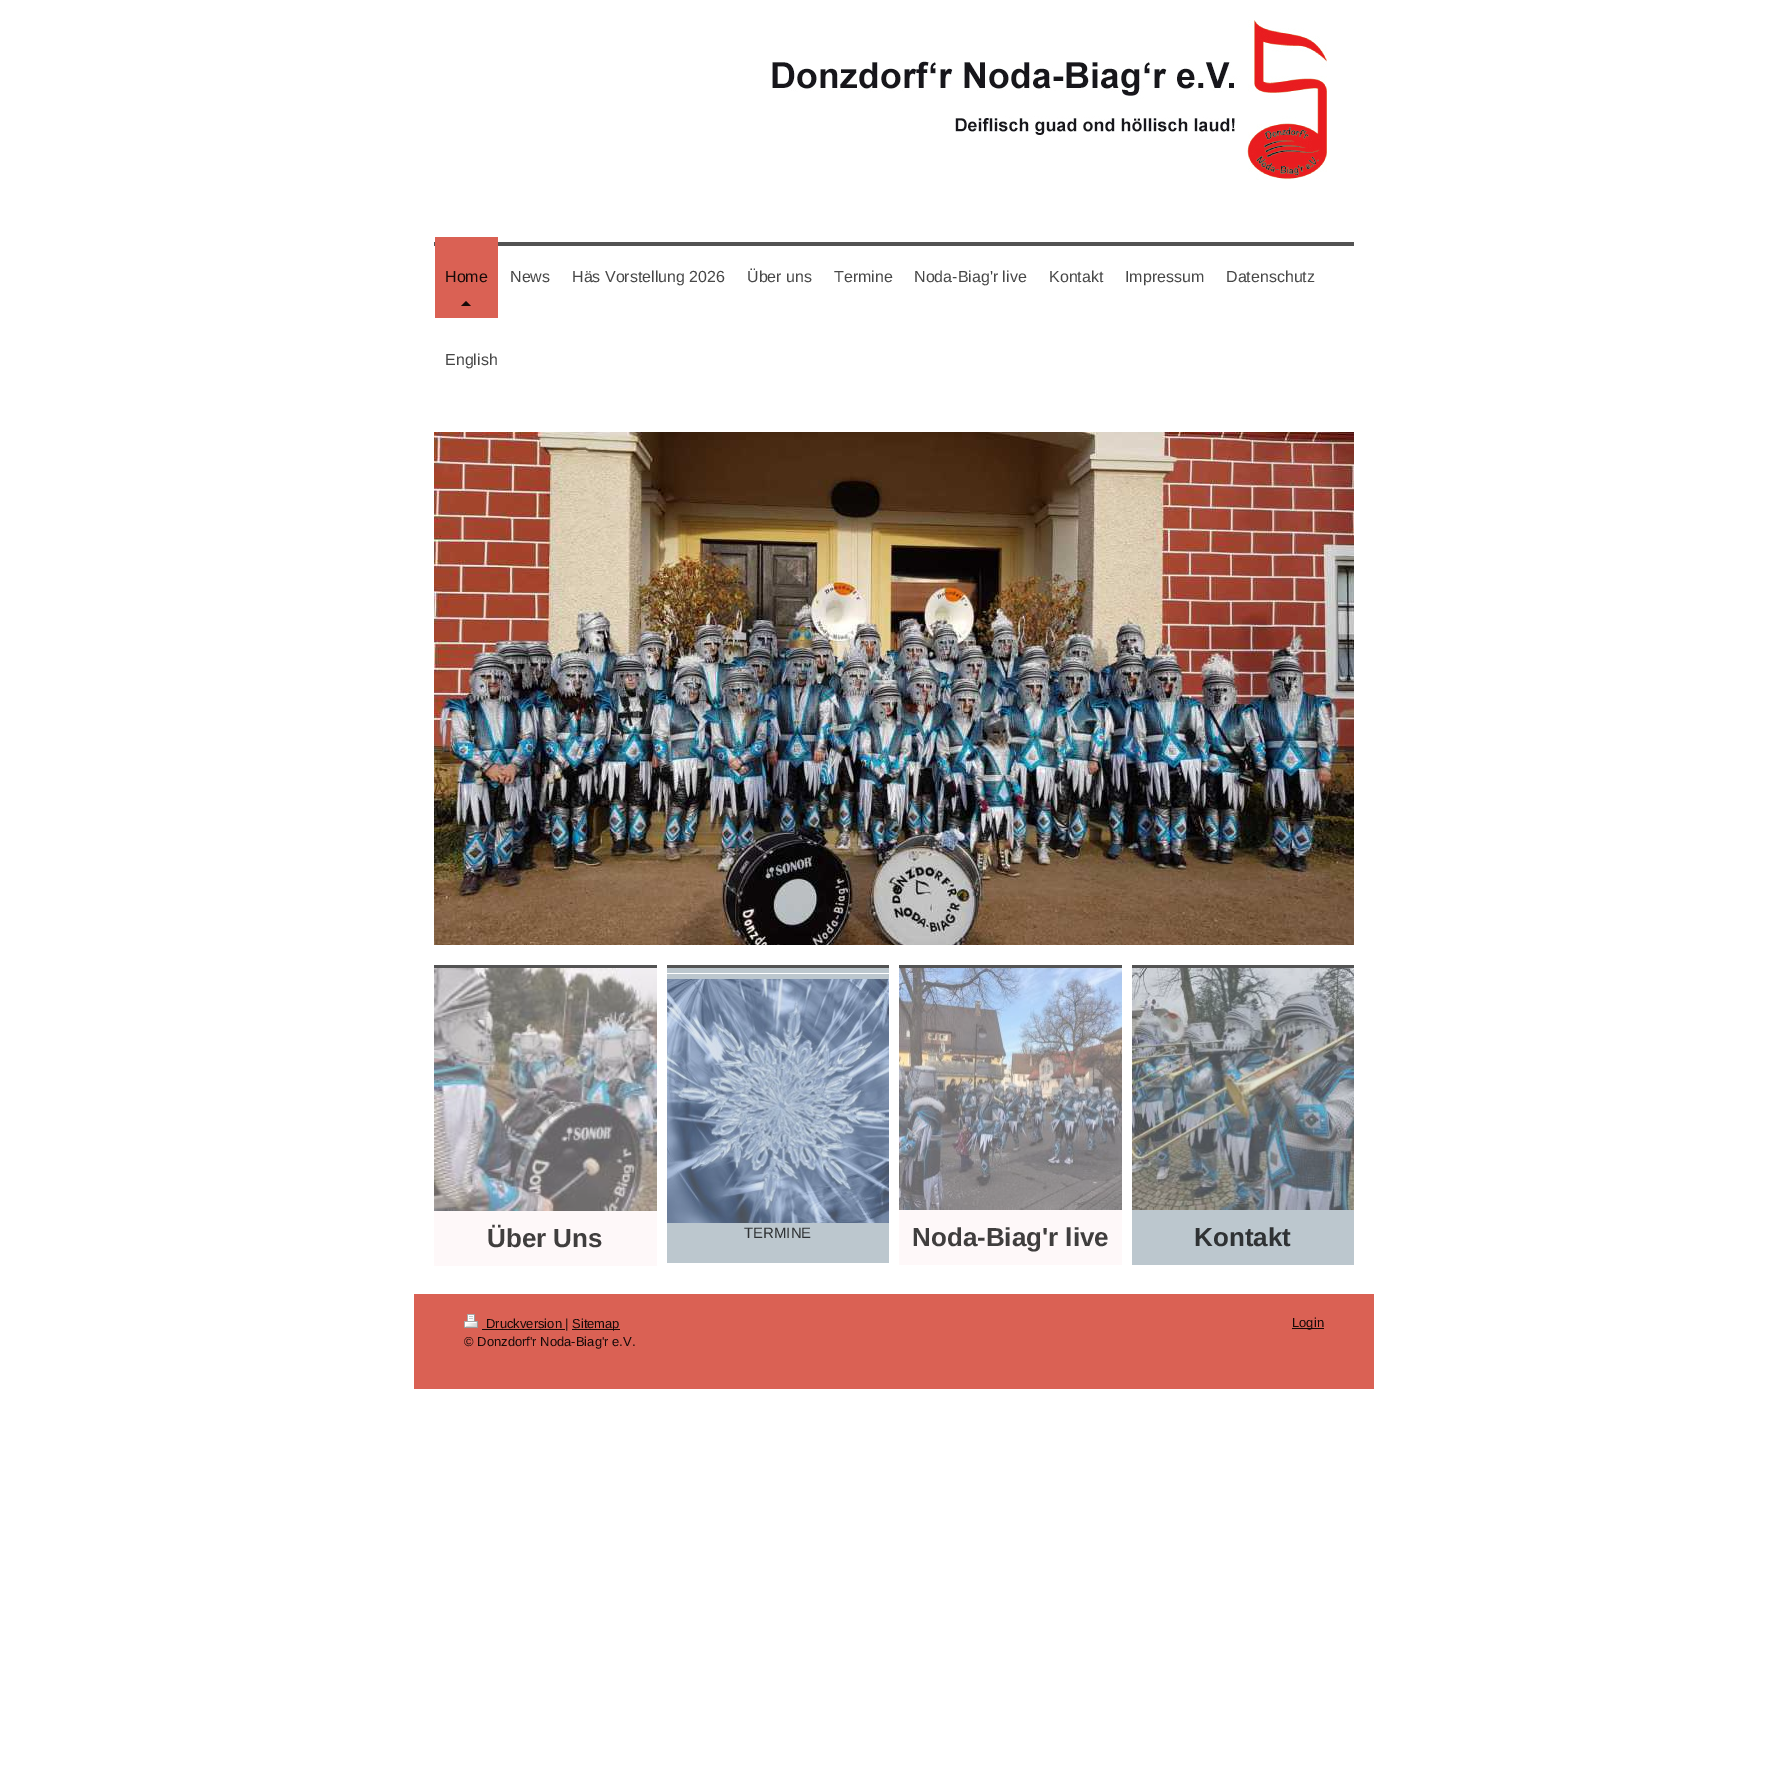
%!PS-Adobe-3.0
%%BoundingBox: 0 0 1788 1775
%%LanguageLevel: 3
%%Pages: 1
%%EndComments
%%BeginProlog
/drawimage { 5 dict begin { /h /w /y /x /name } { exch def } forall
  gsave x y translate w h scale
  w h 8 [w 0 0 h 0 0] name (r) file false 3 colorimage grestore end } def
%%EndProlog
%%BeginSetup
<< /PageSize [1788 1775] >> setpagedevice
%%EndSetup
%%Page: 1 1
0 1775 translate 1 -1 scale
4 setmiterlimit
1 setgray
0 0 1788 1775 rectfill
(images/1.raw) 772 20 555 160 drawimage
0.325 setgray
434 242 920 4 rectfill
0.855 0.38 0.329 setrgbcolor
435 237 63 81 rectfill
0.086 0.039 0.031 setrgbcolor
newpath 471 306 moveto 461 306 lineto 466 301 lineto closepath fill
(images/2.raw) 434 432 920 513 drawimage
0.996 0.973 0.976 setrgbcolor
434 1211 223 55 rectfill
0.325 setgray
434 965 223 3 rectfill
(images/3.raw) 434 968 223 243 drawimage
0.737 0.78 0.808 setrgbcolor
667 968 222 295 rectfill
0.325 setgray
667 965 222 3 rectfill
1 setgray
667 973 222 1 rectfill
(images/4.raw) 667 979 222 244 drawimage
0.996 0.973 0.976 setrgbcolor
899 1210 223 55 rectfill
0.325 setgray
899 965 223 3 rectfill
(images/5.raw) 899 968 223 242 drawimage
0.737 0.78 0.808 setrgbcolor
1132 1210 222 55 rectfill
0.325 setgray
1132 965 222 3 rectfill
(images/6.raw) 1132 968 222 242 drawimage
0.855 0.38 0.329 setrgbcolor
414 1294 960 95 rectfill
(images/7.raw) 464 1314 14 14 drawimage
0.086 0.039 0.031 setrgbcolor
482 1329 83 1 rectfill
572 1329 48 1 rectfill
1292 1328 32 1 rectfill
/LiberationSans-Regular [16 0 0 -16 0 0] selectfont
445 282 moveto (Home) show
0.278 setgray
510 282 moveto (News) show
572 282 moveto (Häs Vorstellung 2026) show
747 282 moveto (Über uns) show
834 282 moveto (Termine) show
914 282 moveto (Noda-Biag'r live) show
1049 282 moveto (Kontakt) show
1125 282 moveto (Impressum) show
1226 282 moveto (Datenschutz) show
445 365 moveto (English) show
/LiberationSans-Bold [26 0 0 -26 0 0] selectfont
0.251 0.243 0.243 setrgbcolor
487 1247 moveto (Über Uns) show
/LiberationSans-Regular [15 0 0 -15 0 0] selectfont
0.184 0.196 0.204 setrgbcolor
744 1238 moveto (TERMINE) show
/LiberationSans-Bold [26 0 0 -26 0 0] selectfont
0.251 0.243 0.243 setrgbcolor
912 1246 moveto (Noda-Biag'r live) show
0.184 0.196 0.204 setrgbcolor
1194 1246 moveto (Kontakt) show
/LiberationSans-Regular [13 0 0 -13 0 0] selectfont
0.086 0.039 0.031 setrgbcolor
486 1328 moveto (Druckversion |) show
572 1328 moveto (Sitemap) show
464 1346 moveto (© Donzdorf'r Noda-Biag'r e.V.) show
1292 1327 moveto (Login) show
showpage
%%EOF
